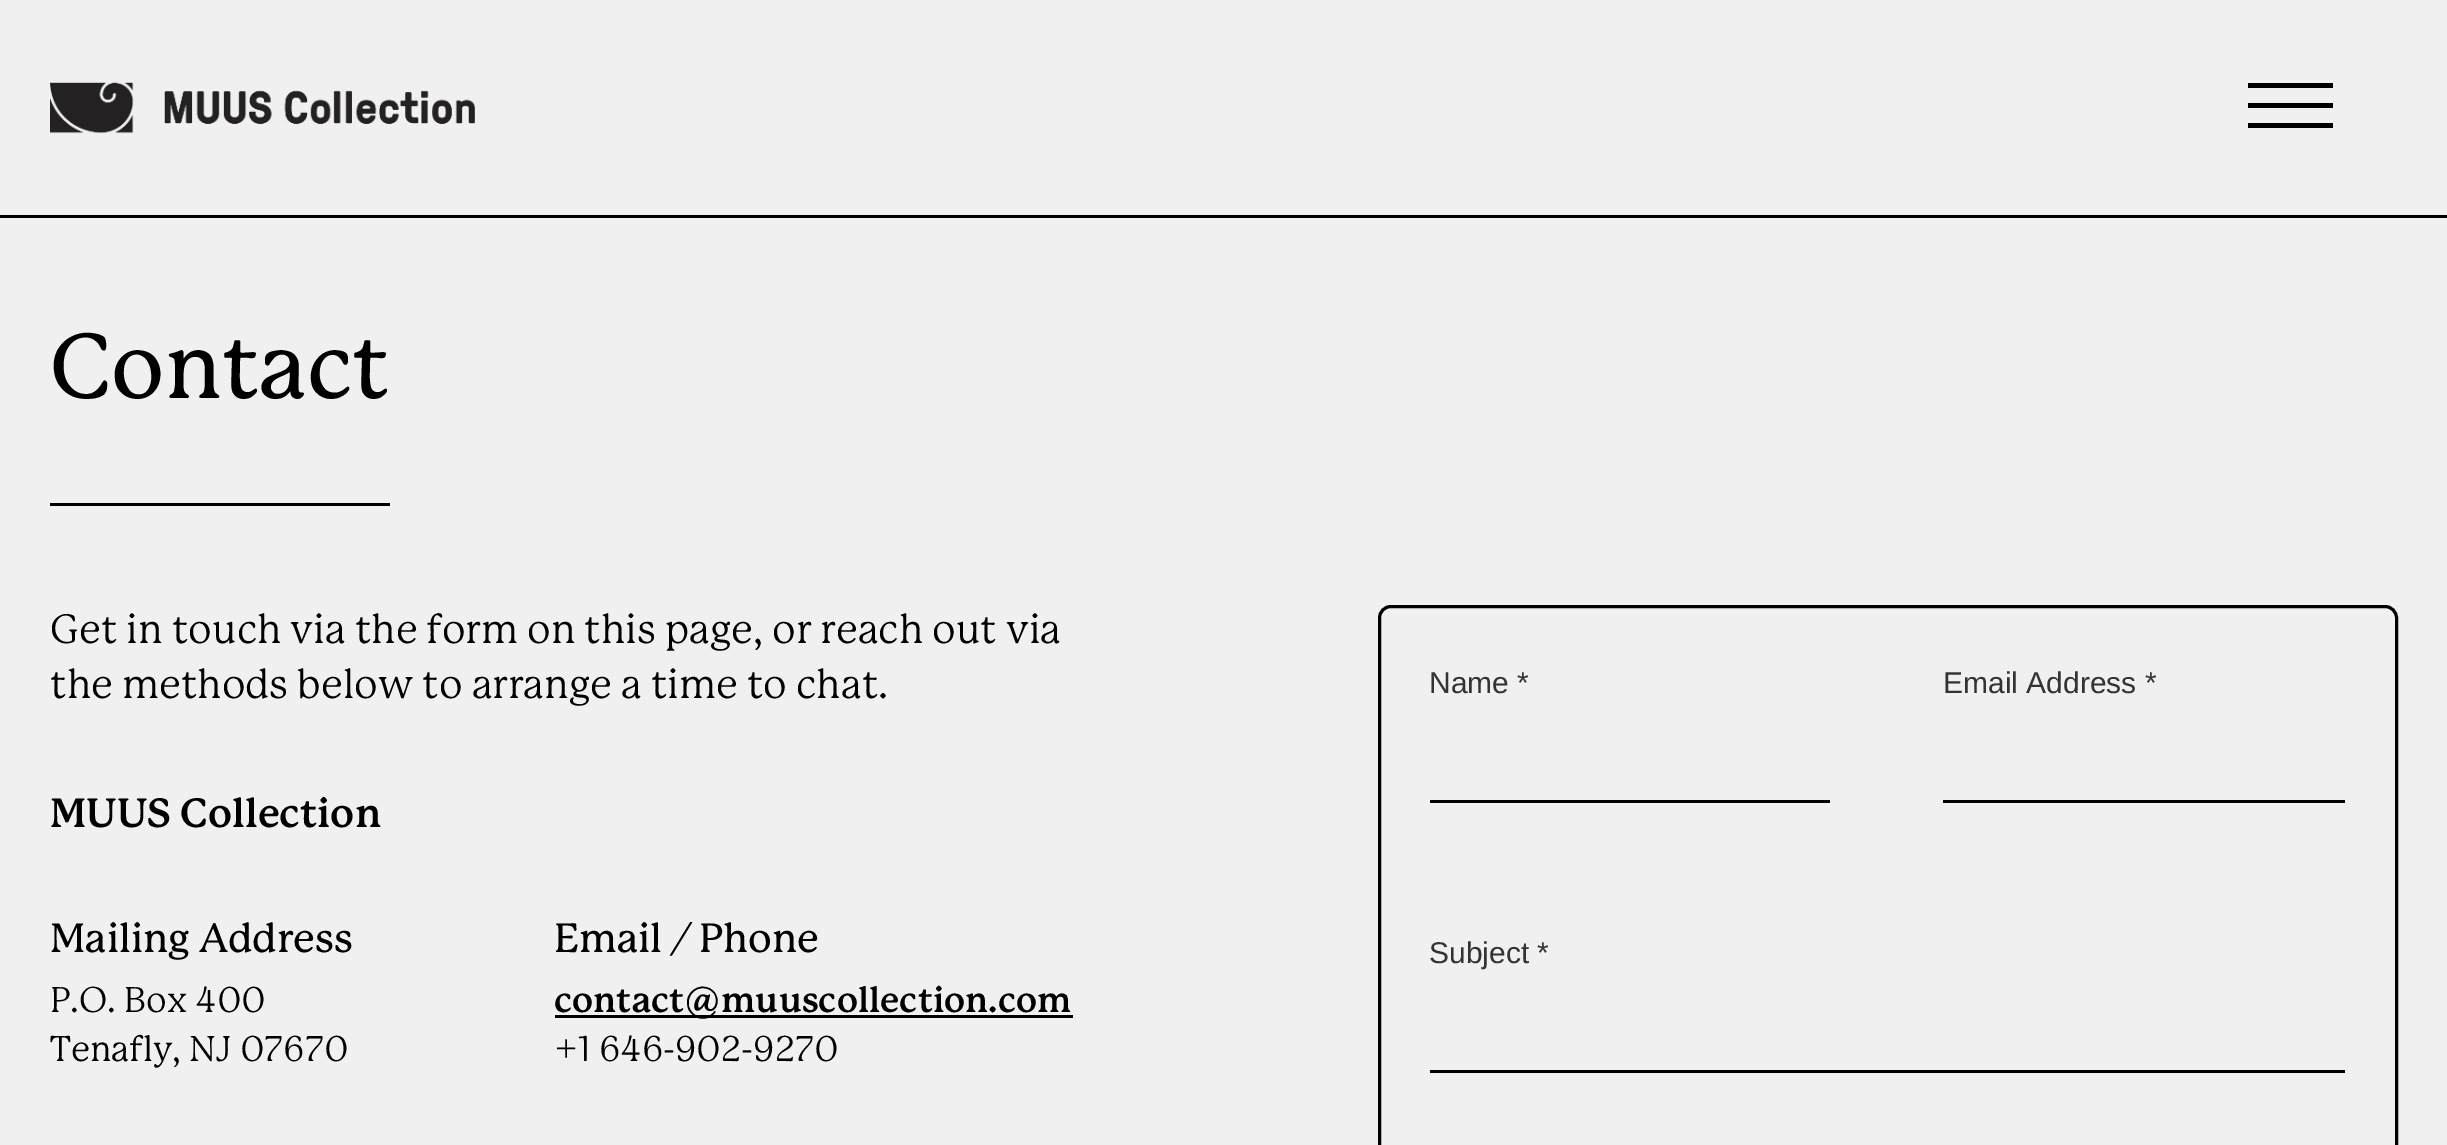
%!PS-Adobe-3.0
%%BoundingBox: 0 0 2447 1145
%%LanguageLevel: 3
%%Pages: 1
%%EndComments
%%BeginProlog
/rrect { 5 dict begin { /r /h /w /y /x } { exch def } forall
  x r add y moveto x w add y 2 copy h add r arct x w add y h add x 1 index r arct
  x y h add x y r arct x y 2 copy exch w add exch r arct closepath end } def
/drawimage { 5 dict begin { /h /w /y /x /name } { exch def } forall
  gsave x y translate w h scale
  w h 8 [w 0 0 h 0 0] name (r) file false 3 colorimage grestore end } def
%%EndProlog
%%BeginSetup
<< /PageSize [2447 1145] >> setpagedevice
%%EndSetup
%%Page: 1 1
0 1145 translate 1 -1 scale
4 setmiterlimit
0.941 setgray
0 0 2447 1145 rectfill
0 setgray
0 215 2447 3 rectfill
(images/1.raw) 50 82 425 52 drawimage
2248 83 85 5 rectfill
2248 103 85 5 rectfill
2248 123 85 5 rectfill
50 503 340 3 rectfill
555 1015 518 3 rectfill
3 setlinewidth
1379.5 606.5 1017 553 11.5 rrect stroke
1430 800 400 3 rectfill
1943 800 402 3 rectfill
1430 1070 915 3 rectfill
/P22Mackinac-Medium [90 0 0 -90 0 0] selectfont
50 398 moveto (Contact) show
/P22Mackinac-Regular [40 0 0 -40 0 0] selectfont
50 643 moveto (Get in touch via the form on this page, or reach out via) show
50 698 moveto (the methods below to arrange a time to chat.) show
/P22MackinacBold-Bold [40 0 0 -40 0 0] selectfont
50 827 moveto (MUUS Collection) show
/P22Mackinac-Medium [40 0 0 -40 0 0] selectfont
50 952 moveto (Mailing Address) show
/P22Mackinac-Regular [35 0 0 -35 0 0] selectfont
50 1012 moveto (P.O. Box 400) show
50 1061 moveto (Tenafly, NJ 07670) show
/P22Mackinac-Medium [40 0 0 -40 0 0] selectfont
554 952 moveto (Email / Phone) show
/P22MackinacBold-Bold [35 0 0 -35 0 0] selectfont
554 1012 moveto (contact@muuscollection.com) show
/P22Mackinac-Regular [35 0 0 -35 0 0] selectfont
554 1061 moveto (+1 646-902-9270) show
/LiberationSans-Regular [30 0 0 -30 0 0] selectfont
0.2 setgray
1429 693 moveto (Name *) show
1943 693 moveto (Email Address *) show
1429 963 moveto (Subject *) show
showpage
%%EOF
